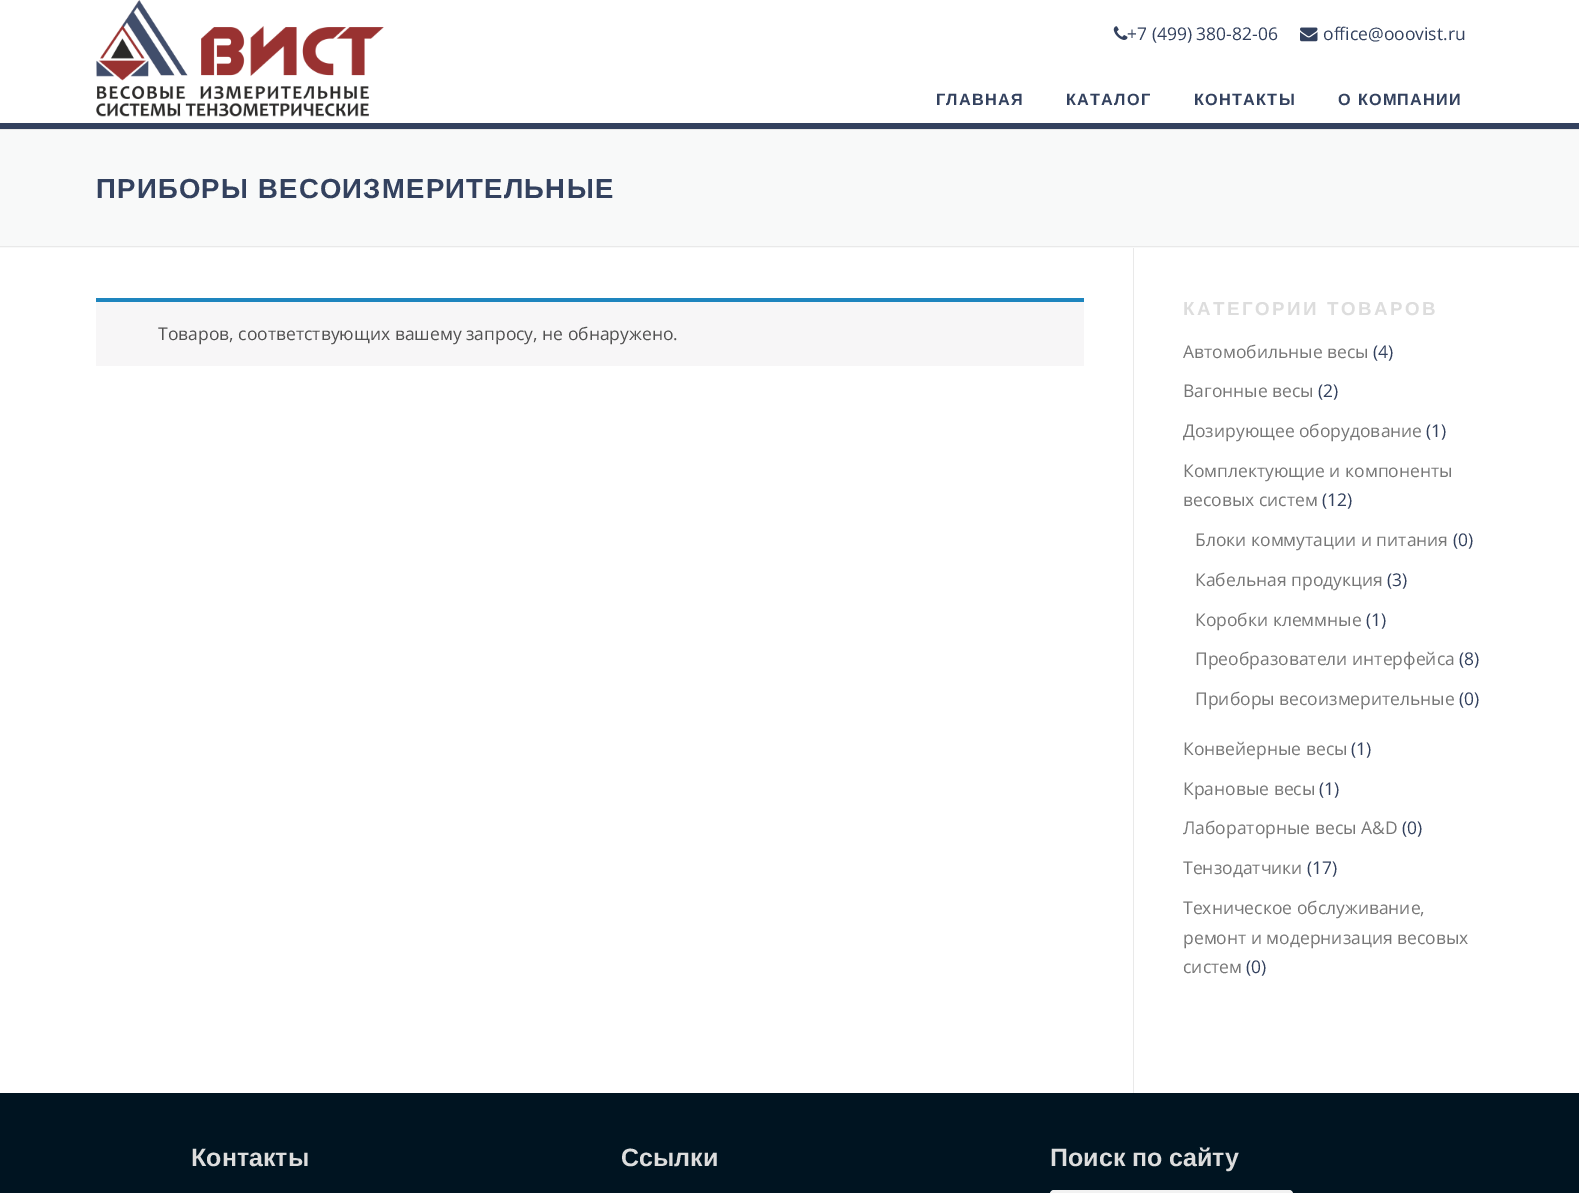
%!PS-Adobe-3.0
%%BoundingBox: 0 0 1579 1193
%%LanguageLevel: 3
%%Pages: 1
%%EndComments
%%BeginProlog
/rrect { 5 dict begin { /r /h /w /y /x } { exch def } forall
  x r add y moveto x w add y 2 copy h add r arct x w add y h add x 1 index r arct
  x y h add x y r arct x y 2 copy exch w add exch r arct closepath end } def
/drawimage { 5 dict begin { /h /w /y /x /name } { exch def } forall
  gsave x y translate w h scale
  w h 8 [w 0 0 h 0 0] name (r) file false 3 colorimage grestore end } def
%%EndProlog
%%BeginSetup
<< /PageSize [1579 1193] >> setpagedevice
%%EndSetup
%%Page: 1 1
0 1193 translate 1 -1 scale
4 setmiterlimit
1 setgray
0 0 1579 1193 rectfill
0.2 0.255 0.369 setrgbcolor
0 123 1579 6 rectfill
(images/1.raw) 96 0 288 117 drawimage
(images/2.raw) 1113 26 15 14 drawimage
(images/3.raw) 1300 27 18 15 drawimage
0.973 0.976 0.976 setrgbcolor
0 130 1579 118 rectfill
0.914 setgray
0 129 1579 1 rectfill
0 246 1579 1 rectfill
0.969 0.965 0.969 setrgbcolor
96 302 988 64 rectfill
0.118 0.522 0.745 setrgbcolor
96 298 988 4 rectfill
0.914 setgray
1133 248 1 845 rectfill
0 0.078 0.129 setrgbcolor
0 1093 1579 100 rectfill
0.949 setgray
1050 1190 243 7 4 rrect fill
/OpenSans-Regular [17.5 0 0 -17.5 0 0] selectfont
0.2 0.255 0.369 setrgbcolor
1127 40 moveto (+7 \(499\) 380-82-06) show
1323 40 moveto (office@ooovist.ru) show
/LiberationSans-Bold [16.25 0 0 -16.25 0 0] selectfont
936 105 moveto 1.25 0 (ГЛАВНАЯ) ashow
1066 105 moveto 1.25 0 (КАТАЛОГ) ashow
1194 105 moveto 1.25 0 (КОНТАКТЫ) ashow
1338 105 moveto 1.25 0 (О КОМПАНИИ) ashow
/LiberationSans-Bold [27.5 0 0 -27.5 0 0] selectfont
96 198 moveto 1.25 0 (ПРИБОРЫ ВЕСОИЗМЕРИТЕЛЬНЫЕ) ashow
/OpenSans-Regular [17.5 0 0 -17.5 0 0] selectfont
0.318 setgray
158 340 moveto (Товаров, соответствующих вашему запросу, не обнаружено.) show
/LiberationSans-Bold [18.75 0 0 -18.75 0 0] selectfont
0.867 setgray
1183 315 moveto 2.5 0 (КАТЕГОРИИ ТОВАРОВ) ashow
/OpenSans-Regular [17.5 0 0 -17.5 0 0] selectfont
0.467 setgray
1183 358 moveto (Автомобильные весы) show
0.2 0.255 0.369 setrgbcolor
1373 358 moveto (\(4\)) show
0.467 setgray
1183 397 moveto (Вагонные весы) show
0.2 0.255 0.369 setrgbcolor
1318 397 moveto (\(2\)) show
0.467 setgray
1183 437 moveto (Дозирующее оборудование) show
0.2 0.255 0.369 setrgbcolor
1426 437 moveto (\(1\)) show
0.467 setgray
1183 477 moveto (Комплектующие и компоненты) show
1183 506 moveto (весовых систем) show
0.2 0.255 0.369 setrgbcolor
1322 506 moveto (\(12\)) show
0.467 setgray
1195 546 moveto (Блоки коммутации и питания) show
0.2 0.255 0.369 setrgbcolor
1453 546 moveto (\(0\)) show
0.467 setgray
1195 586 moveto (Кабельная продукция) show
0.2 0.255 0.369 setrgbcolor
1387 586 moveto (\(3\)) show
0.467 setgray
1195 626 moveto (Коробки клеммные) show
0.2 0.255 0.369 setrgbcolor
1366 626 moveto (\(1\)) show
0.467 setgray
1195 665 moveto (Преобразователи интерфейса) show
0.2 0.255 0.369 setrgbcolor
1459 665 moveto (\(8\)) show
0.467 setgray
1195 705 moveto (Приборы весоизмерительные) show
0.2 0.255 0.369 setrgbcolor
1459 705 moveto (\(0\)) show
0.467 setgray
1183 755 moveto (Конвейерные весы) show
0.2 0.255 0.369 setrgbcolor
1351 755 moveto (\(1\)) show
0.467 setgray
1183 795 moveto (Крановые весы) show
0.2 0.255 0.369 setrgbcolor
1319 795 moveto (\(1\)) show
0.467 setgray
1183 834 moveto (Лабораторные весы A&D) show
0.2 0.255 0.369 setrgbcolor
1402 834 moveto (\(0\)) show
0.467 setgray
1183 874 moveto (Тензодатчики) show
0.2 0.255 0.369 setrgbcolor
1307 874 moveto (\(17\)) show
0.467 setgray
1183 914 moveto (Техническое обслуживание,) show
1183 944 moveto (ремонт и модернизация весовых) show
1183 973 moveto (систем) show
0.2 0.255 0.369 setrgbcolor
1246 973 moveto (\(0\)) show
/LiberationSans-Bold [25 0 0 -25 0 0] selectfont
0.867 setgray
191 1166 moveto (Контакты) show
621 1166 moveto (Ссылки) show
1050 1166 moveto (Поиск по сайту) show
showpage
%%EOF
